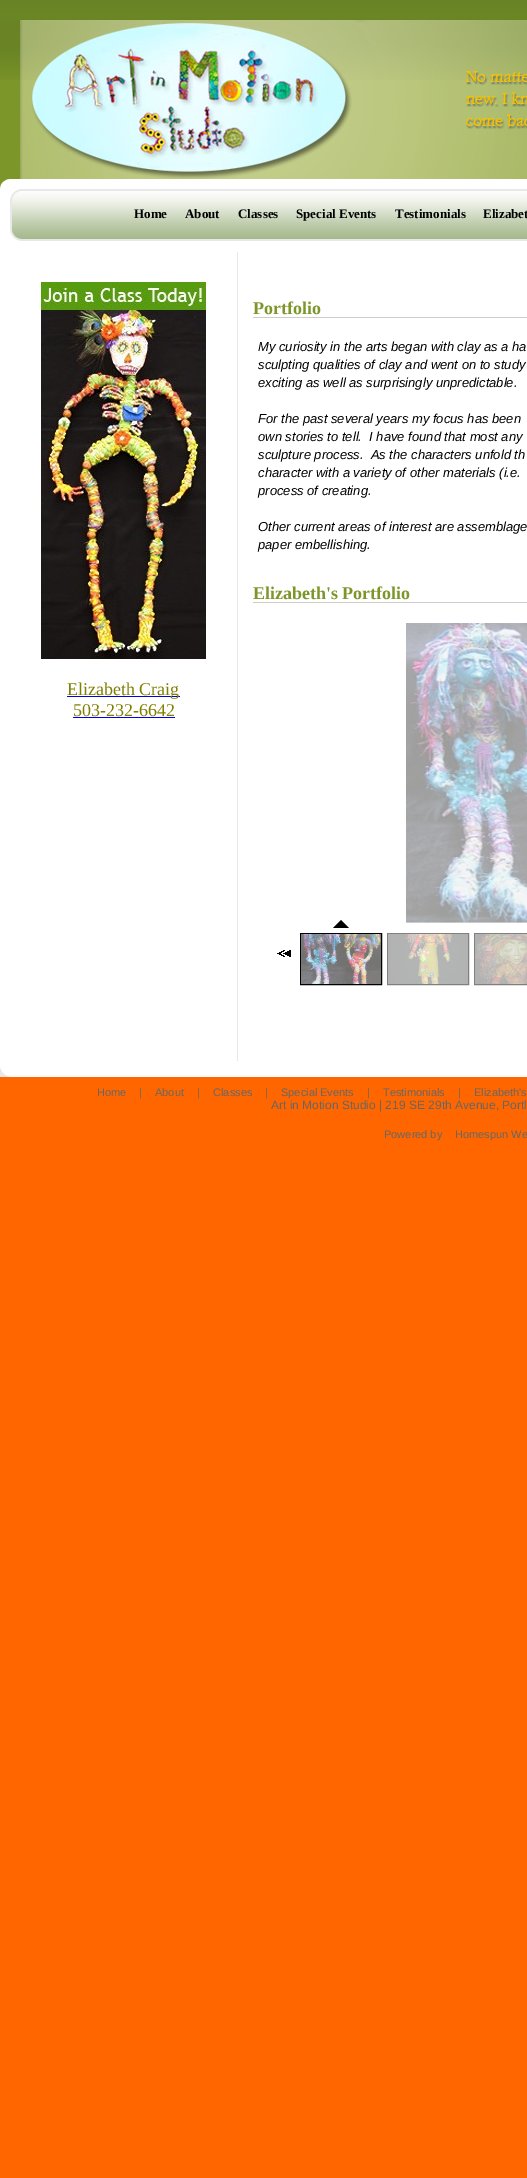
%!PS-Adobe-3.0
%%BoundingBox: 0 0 527 2178
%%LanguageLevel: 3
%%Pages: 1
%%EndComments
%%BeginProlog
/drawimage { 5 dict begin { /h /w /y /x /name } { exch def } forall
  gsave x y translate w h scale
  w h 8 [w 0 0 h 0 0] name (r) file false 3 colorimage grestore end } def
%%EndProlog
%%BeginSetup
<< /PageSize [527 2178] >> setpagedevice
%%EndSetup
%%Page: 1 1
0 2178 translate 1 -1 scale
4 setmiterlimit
1 0.4 0 setrgbcolor
0 0 527 2178 rectfill
0.486 0.588 0.161 setrgbcolor
0 80 527 99 rectfill
(images/1.raw) 0 0 527 80 drawimage
(images/2.raw) 20 20 507 159 drawimage
0 179 10 10 rectfill
1 setgray
0 241 527 820 rectfill
(images/3.raw) 0 179 527 10 drawimage
0 189 10 52 rectfill
(images/4.raw) 10 189 12 52 drawimage
(images/5.raw) 22 189 505 52 drawimage
0.91 setgray
237 252 1 809 rectfill
0.8 setgray
253 317 274 1 rectfill
253 602 274 1 rectfill
(images/6.raw) 406 623 121 300 drawimage
0 setgray
newpath 349 928 moveto 333 928 lineto 341 920 lineto closepath fill
(images/7.raw) 277 950 14 7 drawimage
300.5 933.5 81 51 rectstroke
(images/8.raw) 301 934 80 50 drawimage
0.502 setgray
387.5 933.5 81 51 rectstroke
(images/9.raw) 388 934 80 50 drawimage
474.5 933.5 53 51 rectstroke
(images/10.raw) 475 934 52 50 drawimage
(images/11.raw) 41 282 165 377 drawimage
0 0 0.933 setrgbcolor
67 696 113 1 rectfill
73 717 102 1 rectfill
(images/12.raw) 0 1061 527 16 drawimage
/LiberationSerif-Bold [13 0 0 -13 0 0] selectfont
0 setgray
134 218 moveto (Home) show
185 218 moveto (About) show
238 218 moveto (Classes) show
296 218 moveto (Special Events) show
395 218 moveto (Testimonials) show
483 218 moveto (Elizabet) show
/LiberationSerif-Bold [18 0 0 -18 0 0] selectfont
0.486 0.588 0.161 setrgbcolor
253 314 moveto (Portfolio) show
/LiberationSans-Italic [13 0 0 -13 0 0] selectfont
0 setgray
258 351 moveto (My curiosity in the arts began with clay as a ha) show
258 369 moveto (sculpting qualities of clay and went on to study) show
258 387 moveto (exciting as well as surprisingly unpredictable.) show
258 423 moveto (For the past several years my focus has been) show
258 441 moveto (own stories to tell.  I have found that most any) show
258 459 moveto (sculpture process.  As the characters unfold th) show
258 477 moveto (character with a variety of other materials \(i.e.) show
258 495 moveto (process of creating.) show
258 531 moveto (Other current areas of interest are assemblage) show
258 549 moveto (paper embellishing.) show
/LiberationSerif-Bold [18 0 0 -18 0 0] selectfont
0.486 0.588 0.161 setrgbcolor
253 599 moveto (Elizabeth's Portfolio) show
/LiberationSerif-Regular [18 0 0 -18 0 0] selectfont
0.502 0.502 0 setrgbcolor
67 695 moveto (Elizabeth Craig) show
73 716 moveto (503-232-6642) show
/LiberationSans-Regular [11 0 0 -11 0 0] selectfont
0.4 setgray
97 1096 moveto (Home) show
139 1096 moveto (|) show
155 1096 moveto (About) show
197 1096 moveto (|) show
213 1096 moveto (Classes) show
265 1096 moveto (|) show
281 1096 moveto (Special Events) show
367 1096 moveto (|) show
383 1096 moveto (Testimonials) show
458 1096 moveto (|) show
474 1096 moveto (Elizabeth's) show
/LiberationSans-Regular [12 0 0 -12 0 0] selectfont
271 1109 moveto (Art in Motion Studio | 219 SE 29th Avenue, Portl) show
/LiberationSans-Regular [11 0 0 -11 0 0] selectfont
384 1138 moveto (Powered by) show
455 1138 moveto (Homespun We) show
showpage
%%EOF
